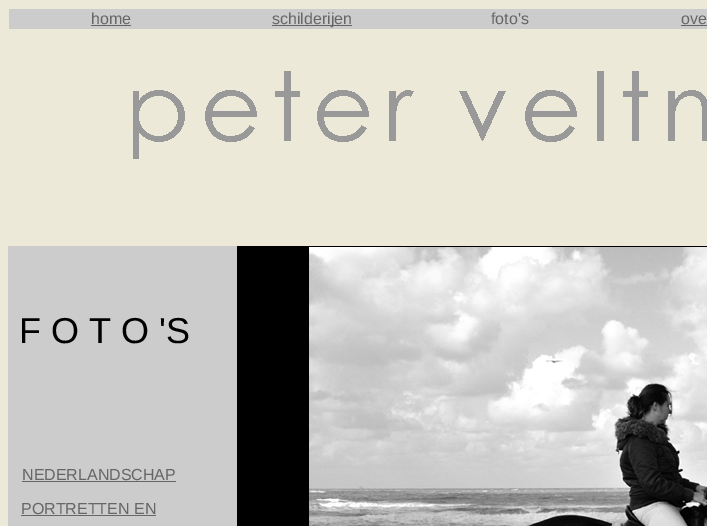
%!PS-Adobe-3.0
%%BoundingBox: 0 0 707 526
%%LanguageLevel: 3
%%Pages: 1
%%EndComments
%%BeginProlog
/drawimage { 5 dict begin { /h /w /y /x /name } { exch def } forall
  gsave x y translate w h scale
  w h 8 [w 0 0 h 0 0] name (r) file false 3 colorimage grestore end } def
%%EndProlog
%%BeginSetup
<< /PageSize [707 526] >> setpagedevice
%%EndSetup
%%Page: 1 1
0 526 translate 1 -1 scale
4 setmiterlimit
0.925 0.914 0.847 setrgbcolor
0 0 707 526 rectfill
0.8 setgray
9 9 698 20 rectfill
0.4 setgray
91 25 40 1 rectfill
272 25 80 1 rectfill
681 25 26 1 rectfill
(images/1.raw) 133 65 574 94 drawimage
0.8 setgray
8 246 229 280 rectfill
0.4 setgray
22 481 154 1 rectfill
21 515 135 1 rectfill
0 setgray
237 246 470 280 rectfill
(images/2.raw) 309 247 398 279 drawimage
/LiberationSans-Regular [16 0 0 -16 0 0] selectfont
0.4 setgray
91 24 moveto (home) show
272 24 moveto (schilderijen) show
491 24 moveto (foto's) show
681 24 moveto (ove) show
/LiberationSans-Regular [36 0 0 -36 0 0] selectfont
0 setgray
19 343 moveto (F O T O 'S) show
/LiberationSans-Regular [16 0 0 -16 0 0] selectfont
0.4 setgray
22 480 moveto (NEDERLANDSCHAP) show
21 514 moveto (PORTRETTEN EN) show
showpage
%%EOF
